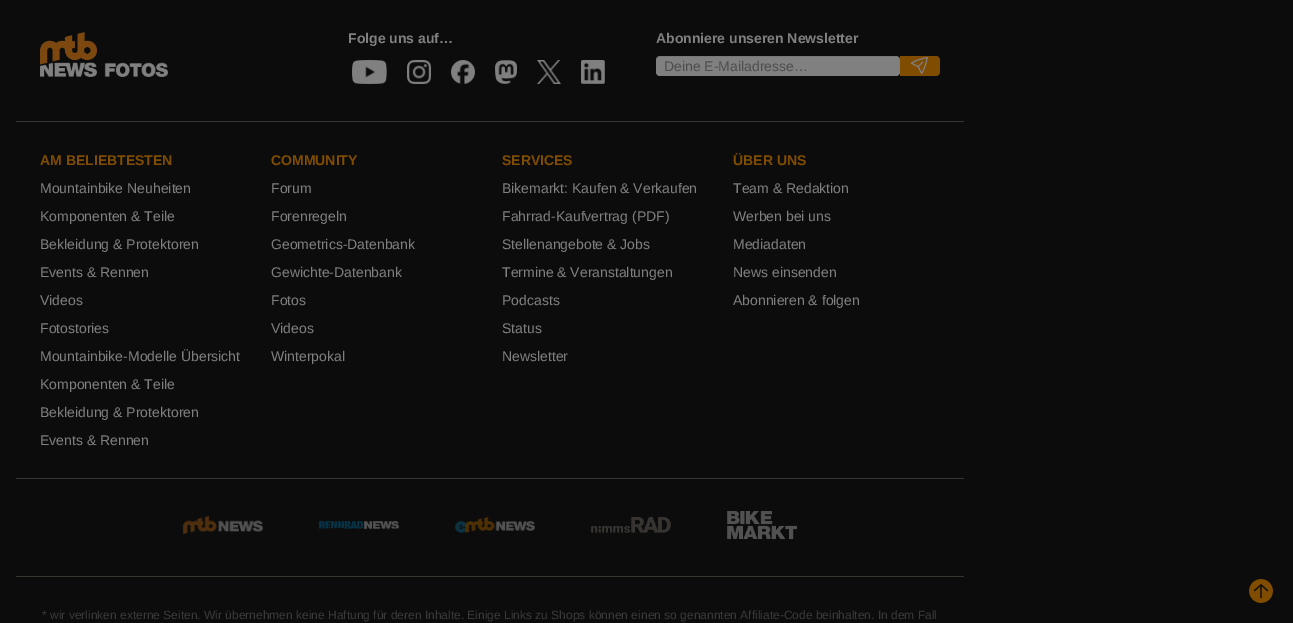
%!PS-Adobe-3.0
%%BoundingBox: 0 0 1293 623
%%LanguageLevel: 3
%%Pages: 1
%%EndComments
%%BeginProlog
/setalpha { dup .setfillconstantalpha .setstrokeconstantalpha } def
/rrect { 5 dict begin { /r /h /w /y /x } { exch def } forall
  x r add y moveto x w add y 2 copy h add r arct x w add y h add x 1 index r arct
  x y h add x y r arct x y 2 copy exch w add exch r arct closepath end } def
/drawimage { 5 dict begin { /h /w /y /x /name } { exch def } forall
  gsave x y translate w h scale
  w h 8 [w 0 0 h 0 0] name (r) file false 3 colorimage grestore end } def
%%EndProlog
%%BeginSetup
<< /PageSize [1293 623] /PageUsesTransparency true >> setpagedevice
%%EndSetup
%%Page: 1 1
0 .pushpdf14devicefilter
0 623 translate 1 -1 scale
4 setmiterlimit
0.047 setgray
0 0 1293 623 rectfill
0.216 0.208 0.196 setrgbcolor
16 121 948 1 rectfill
(images/1.raw) 40 32 128 45 drawimage
(images/2.raw) 352 60 35 24 drawimage
(images/3.raw) 407 60 24 24 drawimage
(images/4.raw) 451 60 24 24 drawimage
(images/5.raw) 495 60 22 24 drawimage
(images/6.raw) 537 60 24 24 drawimage
(images/7.raw) 581 60 24 24 drawimage
0.502 setgray
656 56 244 20 4 rrect fill
0.07 setalpha
0 setgray
newpath 660 57 moveto 898 57 lineto 899 58 900 59 900 61 curveto 900 58 899 56 896 56 curveto 659 56 lineto 656 57 656 59 656 62 curveto 656 59 657 57 660 57 curveto closepath 900 72 moveto 900 72 lineto closepath eofill
1 setalpha
0.502 0.302 0 setrgbcolor
newpath 900 56 moveto 936 56 lineto 938 56 940 58 940 60 curveto 940 72 lineto 940 74 938 76 936 76 curveto 900 76 lineto closepath fill
(images/8.raw) 910 56 18 19 drawimage
0.216 0.208 0.196 setrgbcolor
16 478 948 1 rectfill
16 576 948 1 rectfill
(images/9.raw) 183 516 80 18 drawimage
(images/10.raw) 319 521 80 8 drawimage
(images/11.raw) 455 517 80 16 drawimage
(images/12.raw) 591 517 80 16 drawimage
(images/13.raw) 727 511 70 28 drawimage
(images/14.raw) 1249 579 24 24 drawimage
/LiberationSans-Bold [14 0 0 -14 0 0] selectfont
0.502 setgray
348 43 moveto (Folge uns auf…) show
656 43 moveto (Abonniere unseren Newsletter) show
/LiberationSans-Regular [14 0 0 -14 0 0] selectfont
0.302 setgray
664 71 moveto (Deine E-Mailadresse…) show
/LiberationSans-Bold [14 0 0 -14 0 0] selectfont
0.502 0.302 0 setrgbcolor
40 165 moveto (AM BELIEBTESTEN) show
/LiberationSans-Regular [14 0 0 -14 0 0] selectfont
0.502 setgray
40 193 moveto (Mountainbike Neuheiten) show
40 221 moveto (Komponenten & Teile) show
40 249 moveto (Bekleidung & Protektoren) show
40 277 moveto (Events & Rennen) show
40 305 moveto (Videos) show
40 333 moveto (Fotostories) show
40 361 moveto (Mountainbike-Modelle Übersicht) show
40 389 moveto (Komponenten & Teile) show
40 417 moveto (Bekleidung & Protektoren) show
40 445 moveto (Events & Rennen) show
/LiberationSans-Bold [14 0 0 -14 0 0] selectfont
0.502 0.302 0 setrgbcolor
271 165 moveto (COMMUNITY) show
/LiberationSans-Regular [14 0 0 -14 0 0] selectfont
0.502 setgray
271 193 moveto (Forum) show
271 221 moveto (Forenregeln) show
271 249 moveto (Geometrics-Datenbank) show
271 277 moveto (Gewichte-Datenbank) show
271 305 moveto (Fotos) show
271 333 moveto (Videos) show
271 361 moveto (Winterpokal) show
/LiberationSans-Bold [14 0 0 -14 0 0] selectfont
0.502 0.302 0 setrgbcolor
502 165 moveto (SERVICES) show
/LiberationSans-Regular [14 0 0 -14 0 0] selectfont
0.502 setgray
502 193 moveto (Bikemarkt: Kaufen & Verkaufen) show
502 221 moveto (Fahrrad-Kaufvertrag \(PDF\)) show
502 249 moveto (Stellenangebote & Jobs) show
502 277 moveto (Termine & Veranstaltungen) show
502 305 moveto (Podcasts) show
502 333 moveto (Status) show
502 361 moveto (Newsletter) show
/LiberationSans-Bold [14 0 0 -14 0 0] selectfont
0.502 0.302 0 setrgbcolor
733 165 moveto (ÜBER UNS) show
/LiberationSans-Regular [14 0 0 -14 0 0] selectfont
0.502 setgray
733 193 moveto (Team & Redaktion) show
733 221 moveto (Werben bei uns) show
733 249 moveto (Mediadaten) show
733 277 moveto (News einsenden) show
733 305 moveto (Abonnieren & folgen) show
/LiberationSans-Regular [12 0 0 -12 0 0] selectfont
0.227 setgray
42 619 moveto (* wir verlinken externe Seiten. Wir übernehmen keine Haftung für deren Inhalte. Einige Links zu Shops können einen so genannten Affiliate-Code beinhalten. In dem Fall) show
.poppdf14devicefilter showpage
%%EOF
